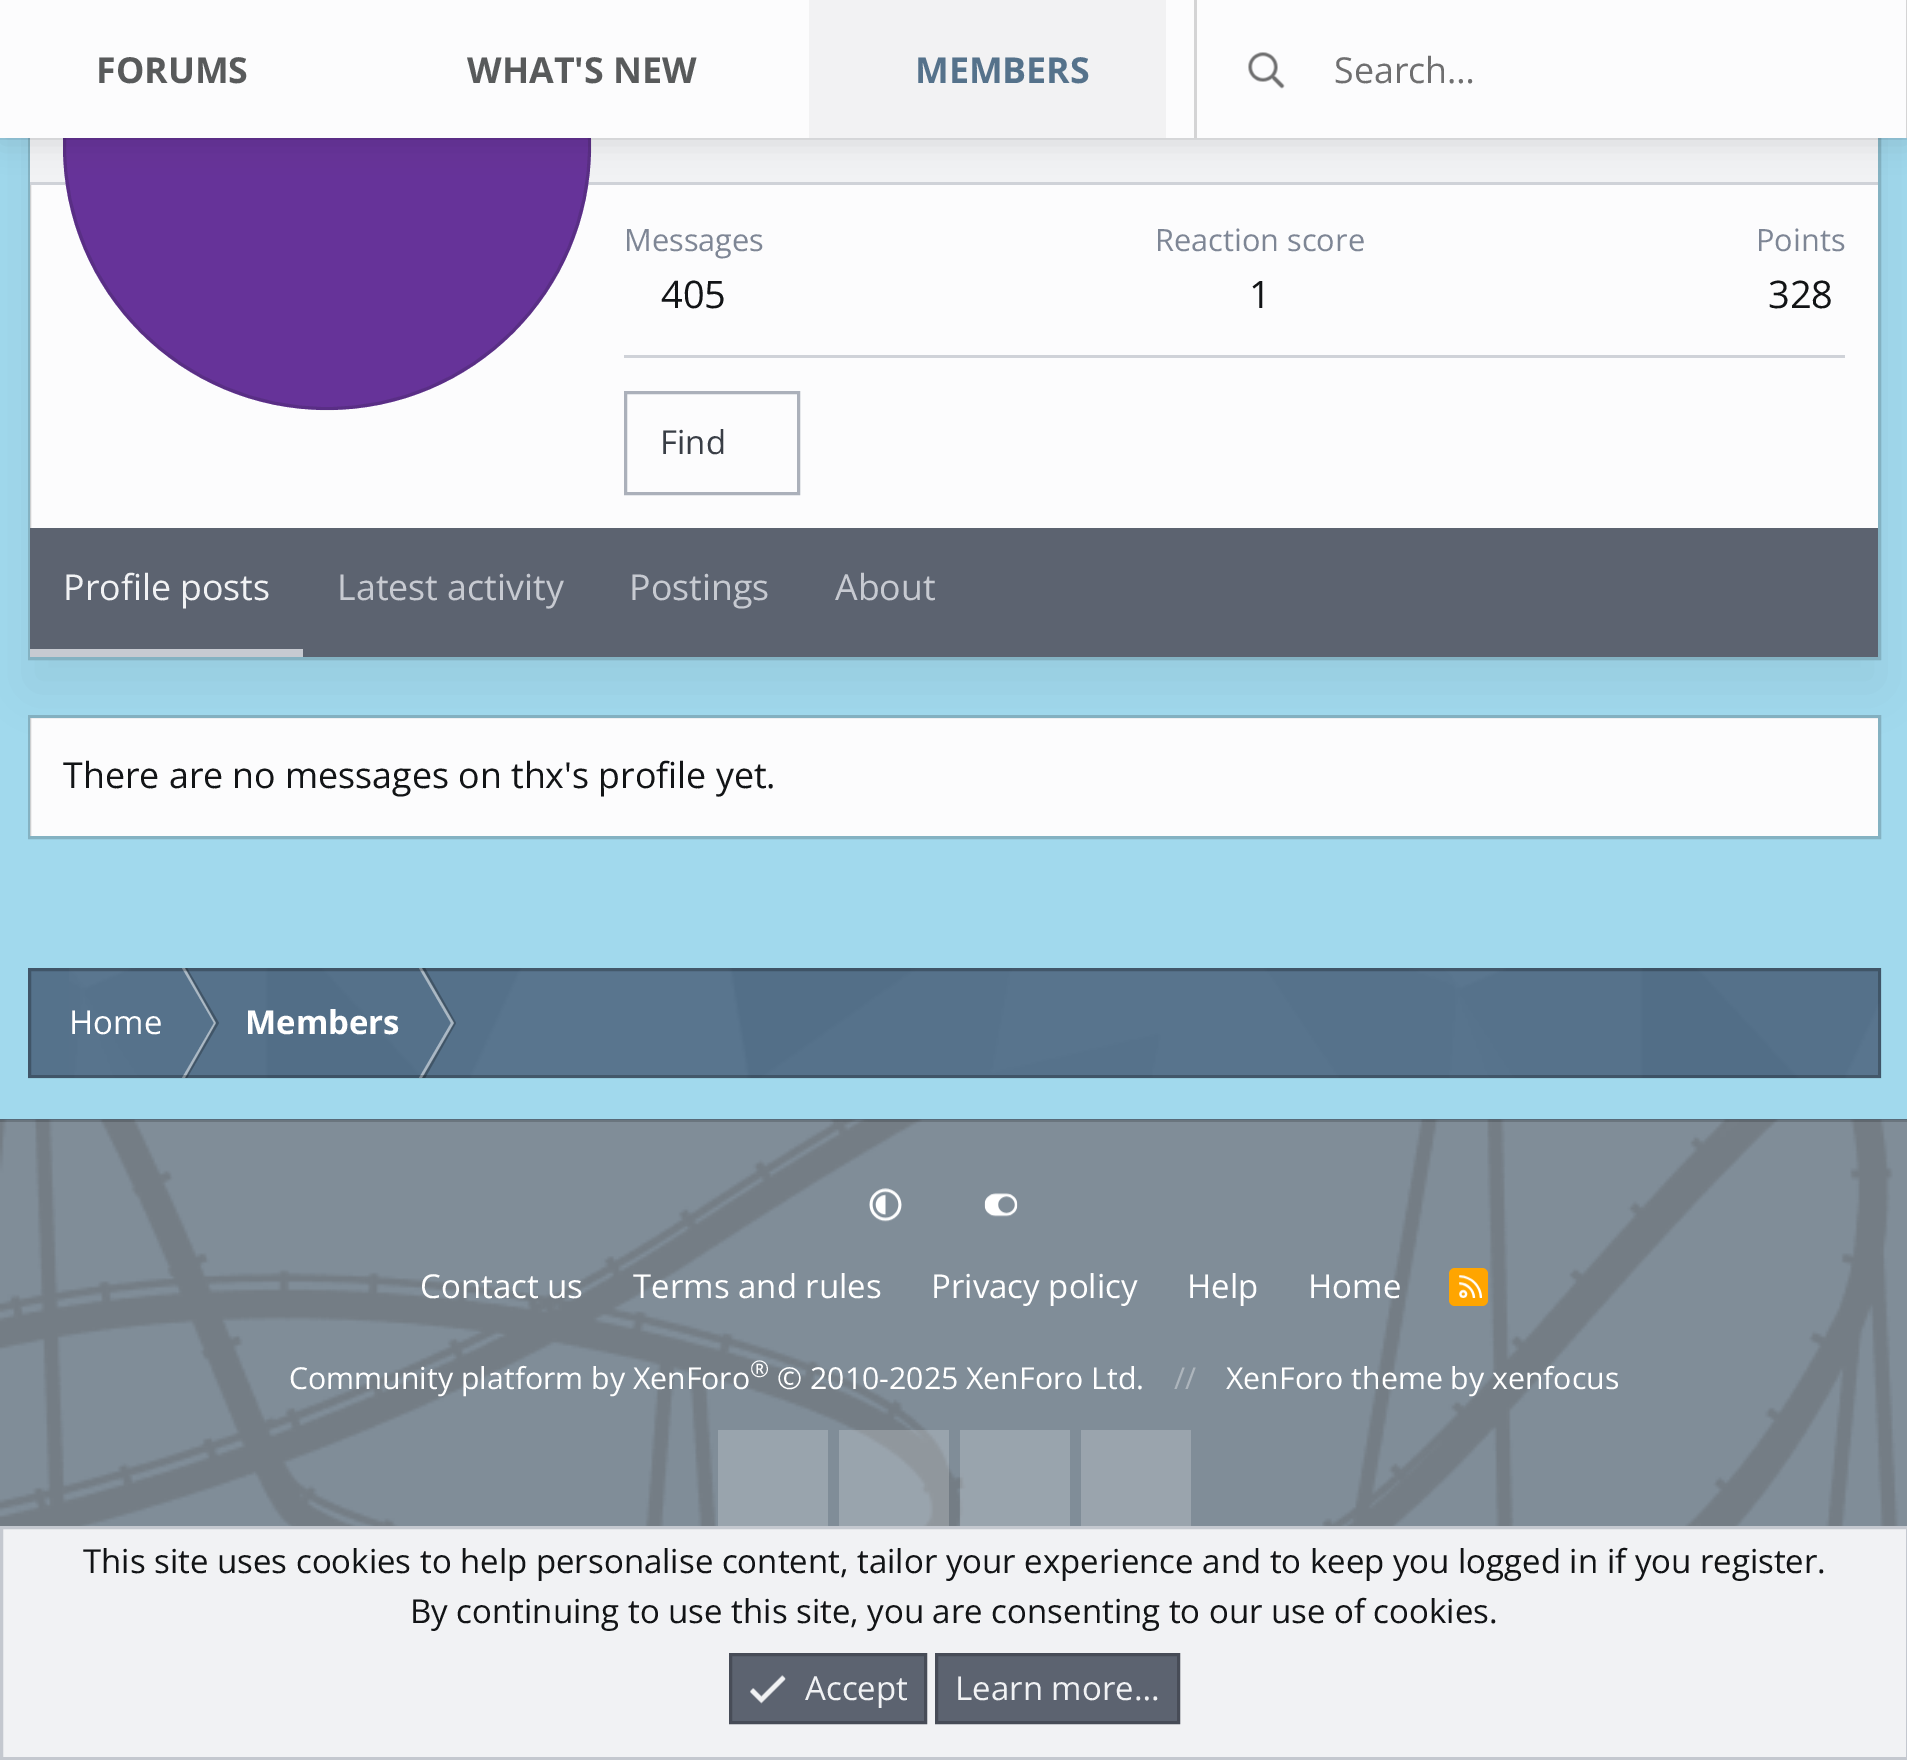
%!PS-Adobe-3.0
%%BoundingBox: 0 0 1907 1760
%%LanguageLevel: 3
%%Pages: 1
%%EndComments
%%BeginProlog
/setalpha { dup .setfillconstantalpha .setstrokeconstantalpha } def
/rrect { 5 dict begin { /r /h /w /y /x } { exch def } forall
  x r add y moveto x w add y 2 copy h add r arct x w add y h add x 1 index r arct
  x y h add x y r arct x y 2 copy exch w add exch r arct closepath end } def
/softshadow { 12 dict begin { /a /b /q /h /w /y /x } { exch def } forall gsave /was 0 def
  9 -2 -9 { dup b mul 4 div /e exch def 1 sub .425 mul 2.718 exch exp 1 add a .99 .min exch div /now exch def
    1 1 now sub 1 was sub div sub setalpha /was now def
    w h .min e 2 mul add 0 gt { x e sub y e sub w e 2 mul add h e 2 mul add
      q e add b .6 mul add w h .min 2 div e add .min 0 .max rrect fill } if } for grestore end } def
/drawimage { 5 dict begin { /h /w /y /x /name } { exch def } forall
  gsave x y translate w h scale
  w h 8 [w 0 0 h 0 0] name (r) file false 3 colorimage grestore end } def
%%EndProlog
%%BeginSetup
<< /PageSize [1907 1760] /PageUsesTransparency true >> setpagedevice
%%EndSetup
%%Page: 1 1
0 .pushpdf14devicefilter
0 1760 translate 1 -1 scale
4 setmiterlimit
0.631 0.851 0.929 setrgbcolor
0 0 1907 1760 rectfill
gsave
newpath 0 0 moveto 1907 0 lineto 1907 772 lineto 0 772 lineto closepath 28 -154 moveto 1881 -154 lineto 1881 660 lineto 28 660 lineto closepath eoclip newpath
0 setgray
28 -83 1853 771 0 27.5 0.06 softshadow
grestore
0.988 0.988 0.992 setrgbcolor
30 185 1848 343 rectfill
0.2 setalpha
0.071 0.078 0.086 setrgbcolor
3 setlinewidth
29.5 -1.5 1850 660 rectstroke
1 setalpha
0.945 0.949 0.957 setrgbcolor
30 138 1848 44 rectfill
0.812 0.824 0.847 setrgbcolor
30 182 1848 3 rectfill
0.4 0.2 0.6 setrgbcolor
newpath 327 146 264 0 360 arc closepath fill
0.15 setalpha
0.071 0.078 0.086 setrgbcolor
newpath 327 146 262.5 0 360 arc closepath stroke
0.05 setalpha
0 setgray
newpath 0 138 moveto 0 140 lineto 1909 140 lineto 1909 3 lineto 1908 3 lineto 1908 138 lineto closepath fill
1 setalpha
0 6 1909 137 0 14 0.1 softshadow
0.988 0.988 0.992 setrgbcolor
0 0 1906 138 rectfill
0.949 0.949 0.953 setrgbcolor
809 0 357 138 rectfill
0.831 0.831 0.835 setrgbcolor
1906 0 1 138 rectfill
1194 0 3 138 rectfill
(images/1.raw) 1248 52 37 37 drawimage
0.812 0.824 0.847 setrgbcolor
624 355 1221 3 rectfill
0.671 0.69 0.729 setrgbcolor
625.5 392.5 173 101 rectstroke
0.361 0.388 0.439 setrgbcolor
30 528 1848 129 rectfill
0.78 0.792 0.82 setrgbcolor
30 649 273 8 rectfill
0.988 0.988 0.992 setrgbcolor
30 718 1848 118 rectfill
0.2 setalpha
0.071 0.078 0.086 setrgbcolor
29.5 716.5 1850 121 rectstroke
1 setalpha
0.333 0.447 0.545 setrgbcolor
28 968 1853 110 rectfill
(images/2.raw) 69 968 1811 110 drawimage
0.671 0.725 0.773 setrgbcolor
newpath 182 968 moveto 185 968 lineto 216 1023 lineto 214 1023 lineto closepath fill
0.25 setalpha
0 setgray
newpath 185 968 moveto 187 968 lineto 219 1023 lineto 216 1023 lineto closepath fill
1 setalpha
0.671 0.725 0.773 setrgbcolor
newpath 214 1023 moveto 216 1023 lineto 185 1078 lineto 182 1078 lineto closepath fill
0.25 setalpha
0 setgray
newpath 216 1023 moveto 219 1023 lineto 187 1078 lineto 185 1078 lineto closepath fill
1 setalpha
0.667 0.722 0.769 setrgbcolor
newpath 419 968 moveto 422 968 lineto 454 1023 lineto 451 1023 lineto closepath fill
0.25 setalpha
0 setgray
newpath 422 968 moveto 425 968 lineto 456 1023 lineto 454 1023 lineto closepath fill
0.5 setalpha
1 setgray
newpath 451 1023 moveto 454 1023 lineto 422 1078 lineto 419 1078 lineto closepath fill
0.25 setalpha
0 setgray
newpath 454 1023 moveto 456 1023 lineto 425 1078 lineto 422 1078 lineto closepath fill
29.5 969.5 1850 107 rectstroke
1 setalpha
0.333 0.447 0.545 setrgbcolor
0 1119 1907 407 rectfill
(images/3.raw) 0 1119 1907 407 drawimage
0.2 setalpha
0.071 0.078 0.086 setrgbcolor
0 1119 1907 3 rectfill
1 setalpha
(images/4.raw) 869 1188 33 34 drawimage
(images/5.raw) 984 1193 34 24 drawimage
1 0.647 0 setrgbcolor
1449 1268 39 38 6 rrect fill
(images/6.raw) 1459 1275 24 23 drawimage
0.6 0.643 0.678 setrgbcolor
718 1430 110 96 rectfill
0.2 setalpha
1 setgray
839 1430 110 96 rectfill
960 1430 110 96 rectfill
1 setalpha
0.604 0.643 0.678 setrgbcolor
1081 1430 110 96 rectfill
0.945 0.949 0.957 setrgbcolor
newpath 1.5 1527.5 moveto 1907.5 1527.5 lineto 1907.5 1758.5 lineto 1.5 1758.5 lineto closepath gsave fill grestore
0.769 0.784 0.812 setrgbcolor
stroke
0.361 0.388 0.439 setrgbcolor
newpath 730.5 1654.5 moveto 925.5 1654.5 lineto 925.5 1722.5 lineto 730.5 1722.5 lineto closepath gsave fill grestore
0.278 0.298 0.341 setrgbcolor
stroke
(images/7.raw) 750 1675 36 29 drawimage
0.361 0.388 0.439 setrgbcolor
newpath 936.5 1654.5 moveto 1178.5 1654.5 lineto 1178.5 1722.5 lineto 936.5 1722.5 lineto closepath gsave fill grestore
0.278 0.298 0.341 setrgbcolor
stroke
/OpenSans-Bold [35.75 0 0 -35.75 0 0] selectfont
0.345 0.353 0.357 setrgbcolor
96 83 moveto (FORUMS) show
467 83 moveto (WHAT'S NEW) show
0.333 0.447 0.545 setrgbcolor
915 83 moveto (MEMBERS) show
/OpenSans-Regular [35.75 0 0 -35.75 0 0] selectfont
0.435 0.435 0.439 setrgbcolor
1334 83 moveto (Search…) show
/OpenSans-Regular [30.75 0 0 -30.75 0 0] selectfont
0.494 0.525 0.584 setrgbcolor
624 251 moveto (Messages) show
/OpenSans-Regular [38 0 0 -38 0 0] selectfont
0.071 0.078 0.086 setrgbcolor
661 308 moveto (405) show
/OpenSans-Regular [30.75 0 0 -30.75 0 0] selectfont
0.494 0.525 0.584 setrgbcolor
1155 251 moveto (Reaction score) show
/OpenSans-Regular [38 0 0 -38 0 0] selectfont
0.071 0.078 0.086 setrgbcolor
1249 308 moveto (1) show
/OpenSans-Regular [30.75 0 0 -30.75 0 0] selectfont
0.494 0.525 0.584 setrgbcolor
1756 251 moveto (Points) show
/OpenSans-Regular [38 0 0 -38 0 0] selectfont
0.071 0.078 0.086 setrgbcolor
1768 308 moveto (328) show
/OpenSans-Regular [33 0 0 -33 0 0] selectfont
0.224 0.243 0.275 setrgbcolor
660 454 moveto (Find) show
/OpenSans-Regular [35.75 0 0 -35.75 0 0] selectfont
0.945 0.949 0.957 setrgbcolor
63 600 moveto (Profile posts) show
0.78 0.792 0.82 setrgbcolor
337 600 moveto (Latest activity) show
629 600 moveto (Postings) show
835 600 moveto (About) show
0.071 0.078 0.086 setrgbcolor
63 788 moveto (There are no messages on thx's profile yet.) show
/OpenSans-Regular [33 0 0 -33 0 0] selectfont
1 setgray
69 1034 moveto (Home) show
/OpenSans-Bold [33 0 0 -33 0 0] selectfont
245 1034 moveto (Members) show
/OpenSans-Regular [33 0 0 -33 0 0] selectfont
420 1298 moveto (Contact us) show
633 1298 moveto (Terms and rules) show
931 1298 moveto (Privacy policy) show
1187 1298 moveto (Help) show
1308 1298 moveto (Home) show
/OpenSans-Regular [30.25 0 0 -30.25 0 0] selectfont
289 1389 moveto (Community platform by XenForo) show
/OpenSans-Regular [23 0 0 -23 0 0] selectfont
750 1377 moveto (®) show
/OpenSans-Regular [30.25 0 0 -30.25 0 0] selectfont
777 1389 moveto (© 2010-2025 XenForo Ltd.) show
0.678 0.71 0.737 setrgbcolor
1174 1389 moveto (//) show
1 setgray
1226 1389 moveto (XenForo theme by xenfocus) show
/OpenSans-Regular [33 0 0 -33 0 0] selectfont
0.071 0.078 0.086 setrgbcolor
83 1573 moveto (This site uses cookies to help personalise content, tailor your experience and to keep you logged in if you register.) show
410 1623 moveto (By continuing to use this site, you are consenting to our use of cookies.) show
0.945 0.949 0.957 setrgbcolor
805 1700 moveto (Accept) show
955 1700 moveto (Learn more…) show
.poppdf14devicefilter showpage
%%EOF
